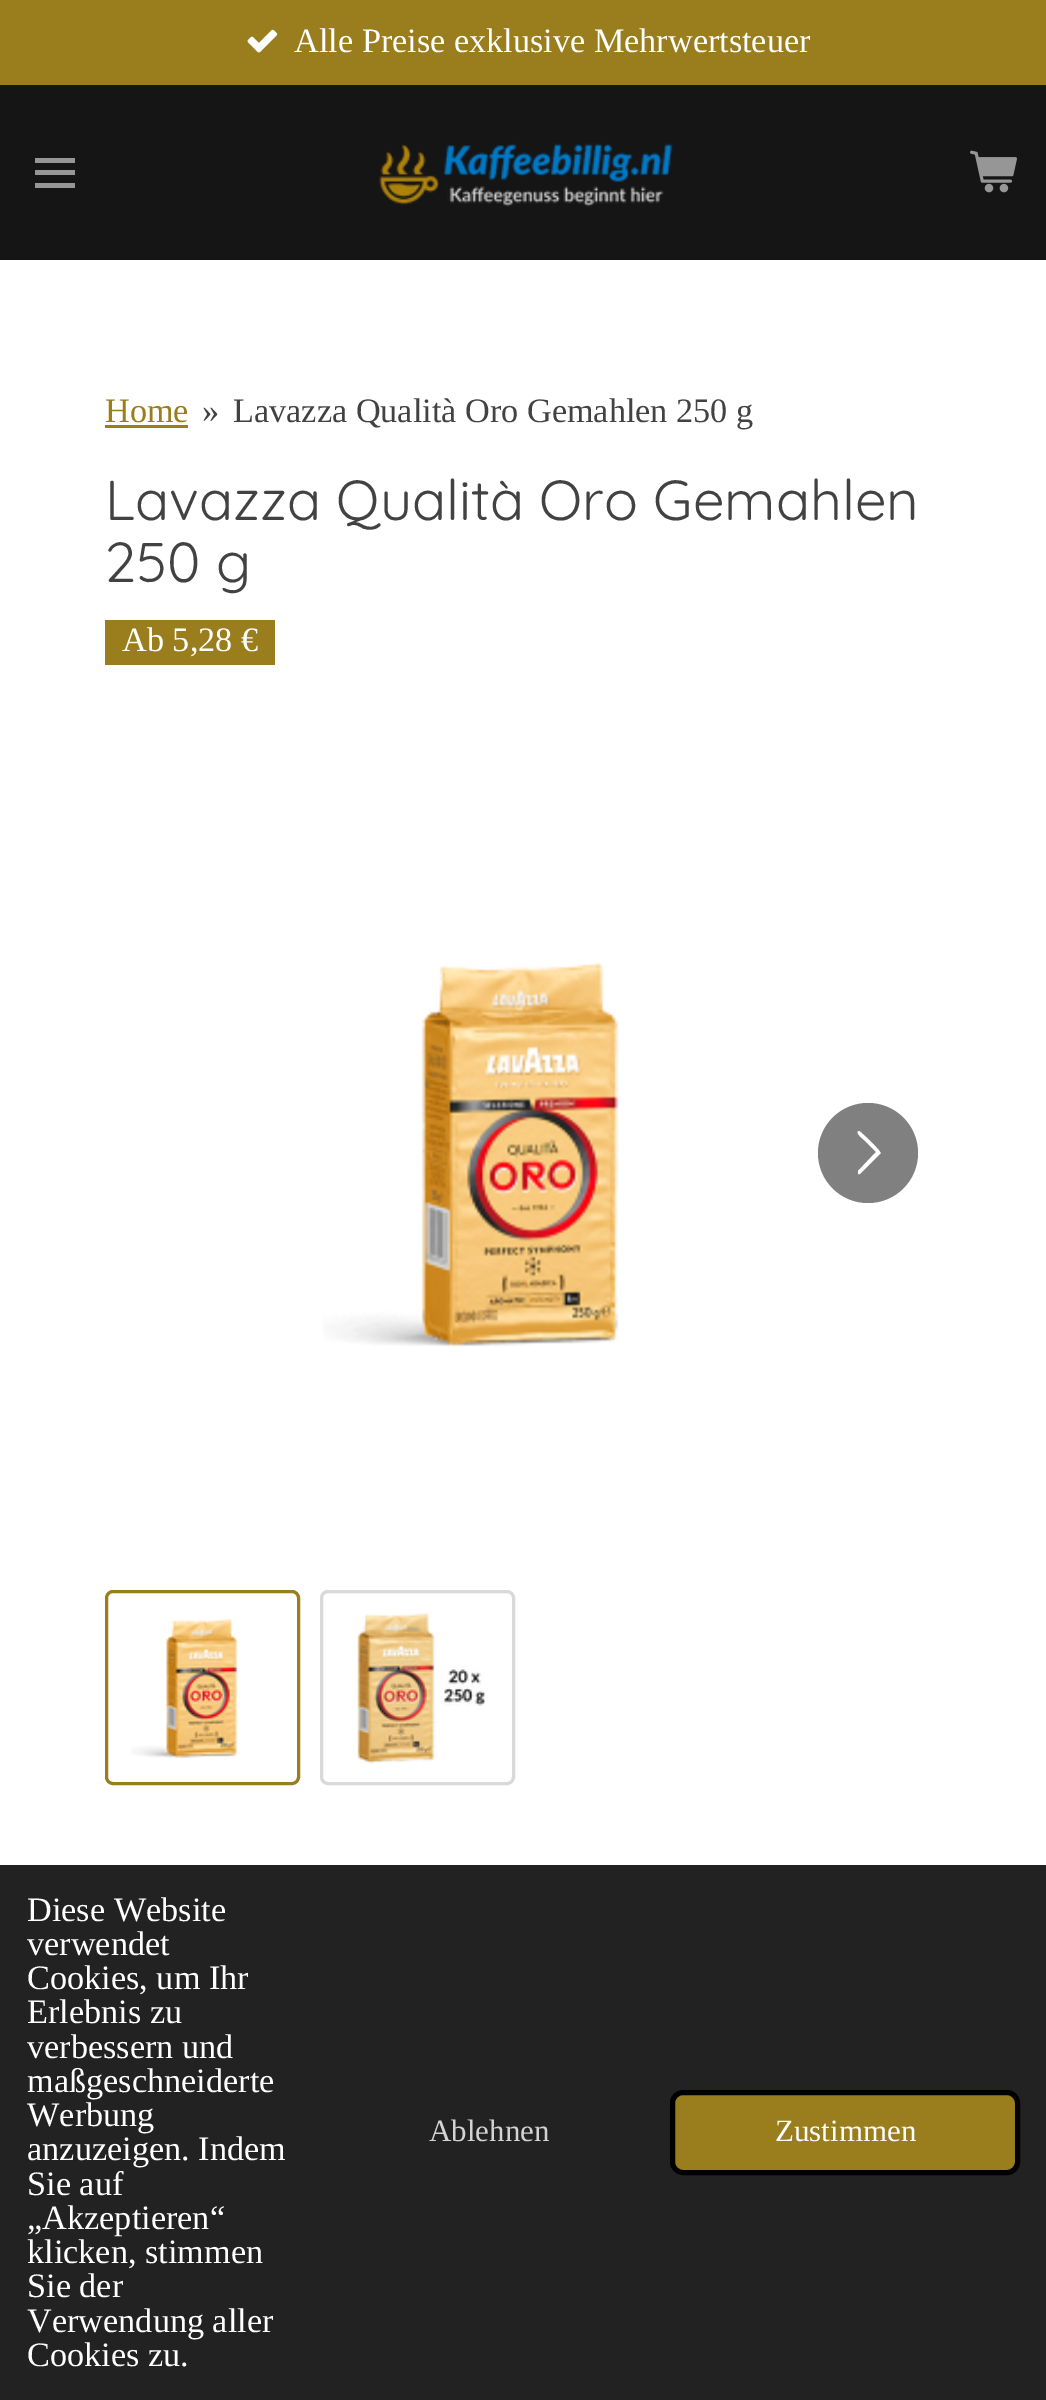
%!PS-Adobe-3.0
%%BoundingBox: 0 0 1046 2400
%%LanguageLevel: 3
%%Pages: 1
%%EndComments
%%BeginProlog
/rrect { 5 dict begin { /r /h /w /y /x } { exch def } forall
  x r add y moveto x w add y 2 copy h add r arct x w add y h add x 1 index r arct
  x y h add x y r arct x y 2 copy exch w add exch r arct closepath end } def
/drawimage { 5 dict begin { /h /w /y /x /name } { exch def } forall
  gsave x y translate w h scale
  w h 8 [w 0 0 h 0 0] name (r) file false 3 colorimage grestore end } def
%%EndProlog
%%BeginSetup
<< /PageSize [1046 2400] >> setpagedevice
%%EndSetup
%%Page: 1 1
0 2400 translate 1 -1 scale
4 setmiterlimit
1 setgray
0 0 1046 2400 rectfill
0.604 0.494 0.118 setrgbcolor
0 0 1046 85 rectfill
(images/1.raw) 247 29 31 24 drawimage
0.082 setgray
0 85 110 175 rectfill
0.588 setgray
35 170 40 5 rectfill
35 158 40 5 rectfill
35 183 40 5 rectfill
0.082 setgray
110 85 936 175 rectfill
(images/2.raw) 970 150 47 43 drawimage
(images/3.raw) 379 143 294 64 drawimage
0.604 0.494 0.118 setrgbcolor
105 425 83 3 rectfill
105 620 170 45 rectfill
(images/4.raw) 323 962 296 385 drawimage
0.502 setgray
newpath 868 1153 50 0 360 arc closepath fill
1 setgray
newpath 858 1171 moveto 876 1152 lineto 864 1140 lineto 863 1139 854 1132 859 1131 curveto 860 1131 879 1149 880 1152 curveto 881 1153 lineto 864 1170 lineto 863 1170 859 1177 858 1173 curveto closepath fill
0.604 0.494 0.118 setrgbcolor
3 setlinewidth
106.5 1591.5 192 192 6.5 rrect stroke
(images/5.raw) 131 1618 107 141 drawimage
0.851 setgray
321.5 1591.5 192 192 6.5 rrect stroke
(images/6.raw) 357 1613 129 151 drawimage
0.133 setgray
0 1865 1046 535 rectfill
0.604 0.494 0.118 setrgbcolor
672.5 2092.5 345 80 10.5 rrect gsave fill grestore
0 setgray
5 setlinewidth
stroke
/LiberationSerif-Regular [34.25 0 0 -34.25 0 0] selectfont
1 setgray
294 52 moveto (Alle Preise exklusive Mehrwertsteuer) show
0.604 0.494 0.118 setrgbcolor
105 422 moveto (Home) show
0.259 setgray
202 422 moveto (») show
233 422 moveto (Lavazza Qualità Oro Gemahlen 250 g) show
/Quicksand-Regular [56.25 0 0 -56.25 0 0] selectfont
105 520 moveto (Lavazza Qualità Oro Gemahlen) show
105 582 moveto (250 g) show
/LiberationSerif-Regular [34.25 0 0 -34.25 0 0] selectfont
1 setgray
122 651 moveto (Ab 5,28 €) show
27 1921 moveto (Diese Website) show
27 1955 moveto (verwendet) show
27 1989 moveto (Cookies, um Ihr) show
27 2023 moveto (Erlebnis zu) show
27 2058 moveto (verbessern und) show
27 2092 moveto (maßgeschneiderte) show
27 2126 moveto (Werbung) show
27 2160 moveto (anzuzeigen. Indem) show
27 2195 moveto (Sie auf) show
27 2229 moveto („Akzeptieren“) show
27 2263 moveto (klicken, stimmen) show
27 2297 moveto (Sie der) show
27 2332 moveto (Verwendung aller) show
27 2366 moveto (Cookies zu.) show
/LiberationSerif-Regular [31 0 0 -31 0 0] selectfont
0.827 setgray
429 2141 moveto (Ablehnen) show
1 setgray
775 2141 moveto (Zustimmen) show
showpage
%%EOF
